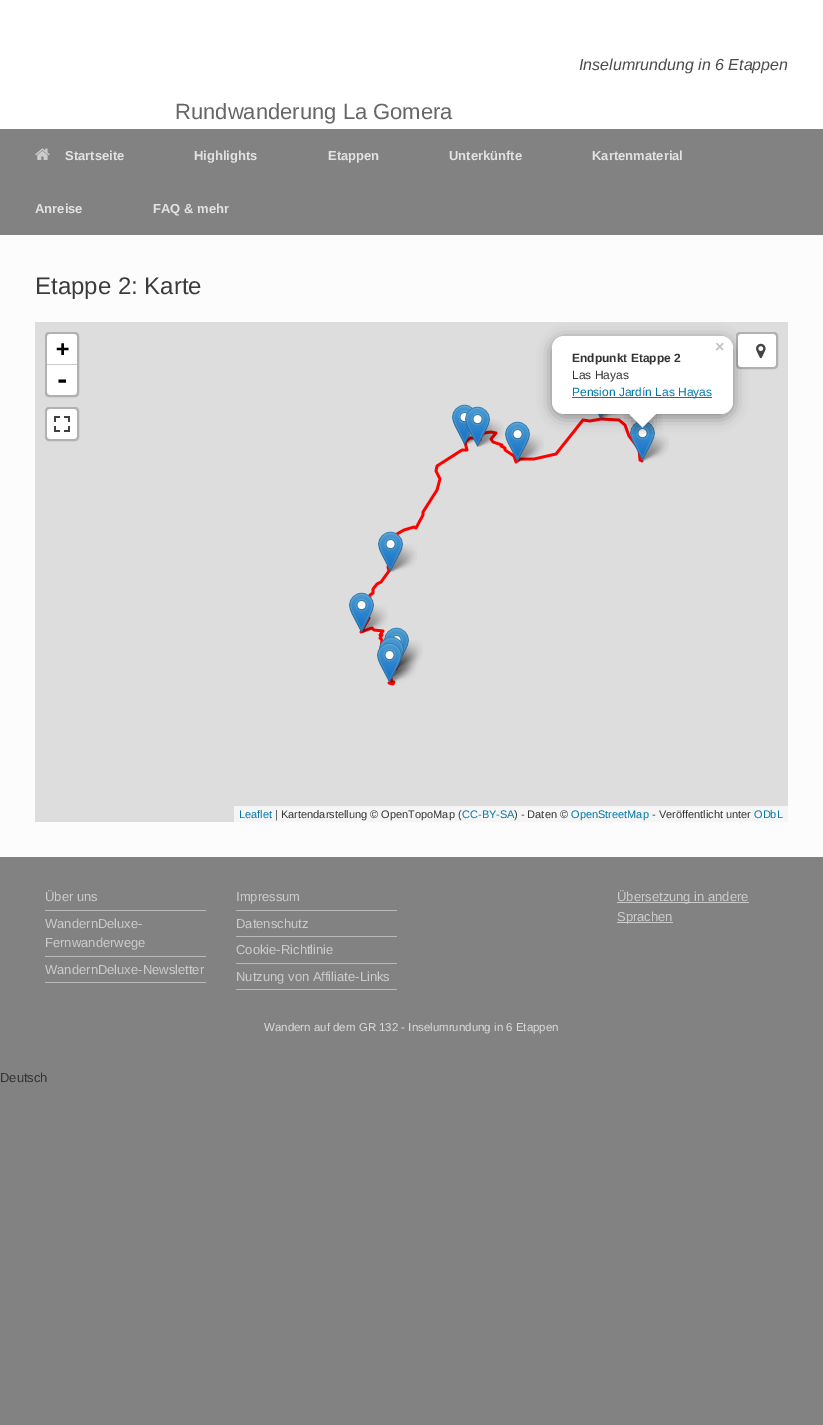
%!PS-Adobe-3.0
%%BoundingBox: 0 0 823 1425
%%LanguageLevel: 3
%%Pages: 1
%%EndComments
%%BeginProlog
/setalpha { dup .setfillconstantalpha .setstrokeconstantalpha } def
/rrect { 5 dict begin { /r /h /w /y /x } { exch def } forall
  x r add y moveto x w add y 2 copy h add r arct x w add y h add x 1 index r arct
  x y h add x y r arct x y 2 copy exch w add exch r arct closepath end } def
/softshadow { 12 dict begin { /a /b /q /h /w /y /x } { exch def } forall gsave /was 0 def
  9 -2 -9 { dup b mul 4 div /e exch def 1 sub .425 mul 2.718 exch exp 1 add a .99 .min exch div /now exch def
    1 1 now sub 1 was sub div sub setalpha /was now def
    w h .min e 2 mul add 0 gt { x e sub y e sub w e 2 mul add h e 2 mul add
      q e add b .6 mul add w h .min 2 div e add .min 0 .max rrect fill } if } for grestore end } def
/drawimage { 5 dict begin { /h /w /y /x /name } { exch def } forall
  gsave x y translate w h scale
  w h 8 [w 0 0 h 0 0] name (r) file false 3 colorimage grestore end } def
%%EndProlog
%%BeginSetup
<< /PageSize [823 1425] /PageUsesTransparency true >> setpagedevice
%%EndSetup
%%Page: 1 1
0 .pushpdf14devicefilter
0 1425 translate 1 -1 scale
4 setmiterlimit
0.51 setgray
0 0 823 1425 rectfill
1 setgray
0 0 823 129 rectfill
(images/1.raw) 35 148 15 12 drawimage
0.988 setgray
0 235 823 622 rectfill
0.867 setgray
35 322 753 500 rectfill
(images/22.raw) 359 417 285 269 drawimage
(images/12.raw) 598 414 20 5 drawimage
(images/4.raw) 598 414 5 5 drawimage
(images/16.raw) 640 433 29 28 drawimage
(images/6.raw) 630 422 25 39 drawimage
(images/15.raw) 515 434 29 28 drawimage
0 setgray
552 339 181 78 12 7 0.4 softshadow
1 setgray
552 336 181 78 12 rrect fill
0 0.471 0.659 setrgbcolor
572 397 140 1 rectfill
gsave
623 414 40 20 rectclip
0 setgray
633 407 19 19 0 7 0.4 softshadow
grestore
gsave
623 414 40 20 rectclip
1 setgray
newpath 642.5 400.5 moveto 656 414 lineto 642.5 427.5 lineto 629 414 lineto closepath fill
grestore
(images/14.raw) 462 422 29 23 drawimage
(images/2.raw) 452 404 22 41 drawimage
(images/13.raw) 475 419 29 28 drawimage
(images/3.raw) 465 406 25 41 drawimage
(images/5.raw) 505 421 25 41 drawimage
(images/17.raw) 388 544 29 28 drawimage
(images/7.raw) 378 531 25 41 drawimage
(images/18.raw) 359 605 29 28 drawimage
(images/8.raw) 349 592 25 41 drawimage
(images/20.raw) 392 649 26 28 drawimage
(images/19.raw) 396 640 27 28 drawimage
(images/21.raw) 387 655 29 28 drawimage
(images/9.raw) 384 627 25 41 drawimage
(images/10.raw) 379 636 25 40 drawimage
(images/11.raw) 377 642 25 41 drawimage
0.694 setgray
2 setlinewidth
46 333 32 63 3 rrect stroke
1 setgray
newpath 51 334 moveto 73 334 lineto 75 334 77 336 77 338 curveto 77 365 lineto 47 365 lineto 47 338 lineto 47 336 49 334 51 334 curveto closepath fill
0.8 setgray
47 364 30 1 rectfill
1 setgray
newpath 47 365 moveto 77 365 lineto 77 391 lineto 77 393 75 395 73 395 curveto 51 395 lineto 49 395 47 393 47 391 curveto closepath fill
0.694 setgray
46 408 32 32 3 rrect stroke
1 setgray
47 409 30 30 4 rrect fill
(images/23.raw) 54 416 16 16 drawimage
0.2 setalpha
0 setgray
737 333 40 35 3 rrect stroke
1 setalpha
1 setgray
738 334 38 33 4 rrect fill
(images/24.raw) 756 343 10 16 drawimage
0.961 setgray
234 806 554 16 rectfill
0.725 setgray
45 910 161 1 rectfill
45 956 161 1 rectfill
45 982 161 1 rectfill
236 910 161 1 rectfill
236 936 161 1 rectfill
236 963 161 1 rectfill
236 989 161 1 rectfill
0.8 setgray
617 902 132 1 rectfill
617 922 56 1 rectfill
/LiberationSans-Italic [16 0 0 -16 0 0] selectfont
0.294 setgray
579 70 moveto (Inselumrundung in 6 Etappen) show
/LiberationSans-Regular [22 0 0 -22 0 0] selectfont
0.4 setgray
175 119 moveto (Rundwanderung La Gomera) show
/LiberationSans-Bold [13 0 0 -13 0 0] selectfont
0.886 setgray
65 160 moveto (Startseite) show
194 160 moveto (Highlights) show
328 160 moveto (Etappen) show
449 160 moveto (Unterkünfte) show
592 160 moveto (Kartenmaterial) show
35 213 moveto (Anreise) show
153 213 moveto (FAQ & mehr) show
/LiberationSans-Regular [24 0 0 -24 0 0] selectfont
0.231 setgray
35 294 moveto (Etappe 2: Karte) show
/LiberationSans-Bold [16 0 0 -16 0 0] selectfont
0.765 setgray
715 352 moveto (×) show
/LiberationSans-Bold [12 0 0 -12 0 0] selectfont
0.2 setgray
572 362 moveto (Endpunkt Etappe 2) show
/LiberationSans-Regular [12 0 0 -12 0 0] selectfont
572 379 moveto (Las Hayas) show
0 0.471 0.659 setrgbcolor
572 396 moveto (Pension Jardín Las Hayas) show
/DejaVuSansMono-Bold [22 0 0 -22 0 0] selectfont
0 setgray
56 356 moveto (+) show
/DejaVuSansMono-Bold [24 0 0 -24 0 0] selectfont
55 388 moveto (-) show
/LiberationSans-Regular [11 0 0 -11 0 0] selectfont
0 0.471 0.659 setrgbcolor
239 818 moveto (Leaflet) show
0.2 setgray
275 818 moveto (| Kartendarstellung © OpenTopoMap \() show
0 0.471 0.659 setrgbcolor
462 818 moveto (CC-BY-SA) show
0.2 setgray
514 818 moveto (\) - Daten ©) show
0 0.471 0.659 setrgbcolor
571 818 moveto (OpenStreetMap) show
0.2 setgray
652 818 moveto (- Veröffentlicht unter) show
0 0.471 0.659 setrgbcolor
754 818 moveto (ODbL) show
/LiberationSans-Regular [13 0 0 -13 0 0] selectfont
0.8 setgray
45 901 moveto (Über uns) show
45 928 moveto (WandernDeluxe-) show
45 947 moveto (Fernwanderwege) show
45 974 moveto (WandernDeluxe-Newsletter) show
236 901 moveto (Impressum) show
236 928 moveto (Datenschutz) show
236 954 moveto (Cookie-Richtlinie) show
236 981 moveto (Nutzung von Affiliate-Links) show
617 901 moveto (Übersetzung in andere) show
617 921 moveto (Sprachen) show
/LiberationSans-Regular [11.5 0 0 -11.5 0 0] selectfont
0.859 setgray
264 1031 moveto (Wandern auf dem GR 132 - Inselumrundung in 6 Etappen) show
/LiberationSans-Regular [13 0 0 -13 0 0] selectfont
0.2 setgray
0 1082 moveto (Deutsch) show
.poppdf14devicefilter showpage
%%EOF
